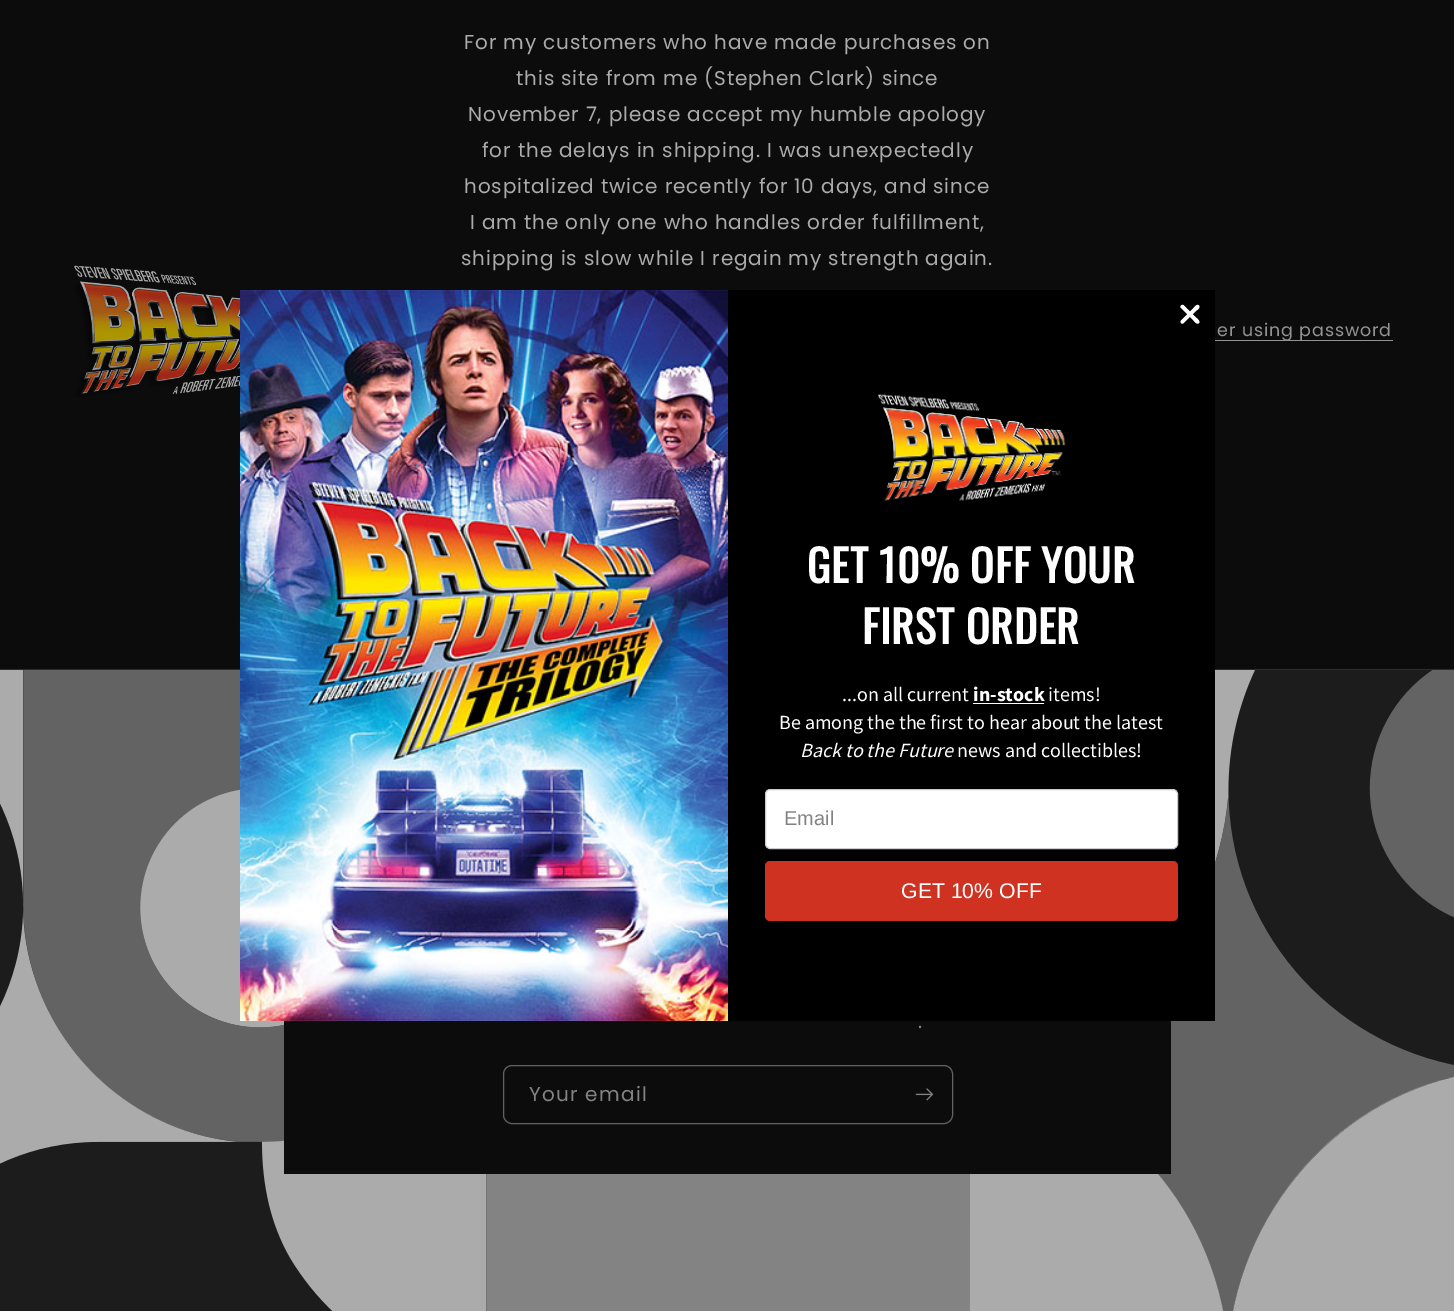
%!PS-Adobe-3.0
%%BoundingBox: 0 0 1454 1311
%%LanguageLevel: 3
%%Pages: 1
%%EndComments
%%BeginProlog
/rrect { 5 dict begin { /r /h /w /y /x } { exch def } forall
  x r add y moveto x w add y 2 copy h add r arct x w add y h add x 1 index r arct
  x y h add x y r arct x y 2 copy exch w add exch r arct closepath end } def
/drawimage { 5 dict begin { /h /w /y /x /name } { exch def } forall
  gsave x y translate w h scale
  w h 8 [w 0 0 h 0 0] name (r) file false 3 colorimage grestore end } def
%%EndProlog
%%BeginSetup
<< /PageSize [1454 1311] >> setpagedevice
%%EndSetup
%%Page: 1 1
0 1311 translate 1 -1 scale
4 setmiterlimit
0.047 setgray
0 0 1454 1311 rectfill
(images/1.raw) 74 265 166 132 drawimage
0.576 setgray
1215 340 178 1 rectfill
0.173 setgray
0 669 1454 1 rectfill
(images/4.raw) 0 670 1454 641 drawimage
0 setgray
728 290 487 731 rectfill
1 setgray
newpath 1184 305.5 moveto 1196.5 318 lineto 1197.5 319 1200.5 321.5 1199 323 curveto 1197 325 1194.5 321.5 1193.5 320.5 curveto 1180.5 307.5 lineto 1180 305.5 1182.5 304 1184 305.5 curveto closepath fill
newpath 1181 320.5 moveto 1193.5 308 lineto 1194.5 307 1197 303.5 1199 305.5 curveto 1200.5 307.5 1197.5 310 1196.5 310.5 curveto 1183 323.5 lineto 1181.5 324.5 1180 322 1181 320.5 curveto closepath fill
(images/2.raw) 240 290 488 731 drawimage
(images/3.raw) 878 394 188 108 drawimage
973 703 71 1 rectfill
765.5 789.5 412 59 4.5 rrect gsave fill grestore
0.8 setgray
stroke
0.812 0.196 0.129 setrgbcolor
765 861 413 60 5 rrect fill
0.047 setgray
284 1021 887 153 rectfill
0.388 setgray
503.5 1065.5 449 58 8.5 rrect stroke
(images/5.raw) 915 1088 18 13 drawimage
/Poppins-Regular [20 0 0 -20 0 0] selectfont
0.671 setgray
464 49 moveto 0.88 0 (For my customers who have made purchases on) ashow
516 85 moveto 0.88 0 (this site from me \(Stephen Clark\) since) ashow
468 121 moveto 0.88 0 (November 7, please accept my humble apology) ashow
482 157 moveto 0.88 0 (for the delays in shipping. I was unexpectedly) ashow
464 193 moveto 0.88 0 (hospitalized twice recently for 10 days, and since) ashow
470 229 moveto 0.88 0 (I am the only one who handles order fulfillment,) ashow
461 265 moveto 0.88 0 (shipping is slow while I regain my strength again.) ashow
/Poppins-Regular [17.5 0 0 -17.5 0 0] selectfont
0.576 setgray
1217 336 moveto 0.88 0 (er using password) ashow
/Oswald-Bold [43.75 0 0 -43.75 0 0] selectfont
1 setgray
807 583 moveto 0.75 0 (GET 10% OFF YOUR) ashow
862 644 moveto 0.75 0 (FIRST ORDER) ashow
/SourceSansPro-Regular [20 0 0 -20 0 0] selectfont
842 701 moveto (...on all current) show
/SourceSansPro-Bold [20 0 0 -20 0 0] selectfont
973 701 moveto (in-stock) show
/SourceSansPro-Regular [20 0 0 -20 0 0] selectfont
1048 701 moveto (items!) show
779 729 moveto (Be among the the first to hear about the latest) show
/SourceSansPro-Italic [20 0 0 -20 0 0] selectfont
800 757 moveto (Back to the Future) show
/SourceSansPro-Regular [20 0 0 -20 0 0] selectfont
957 757 moveto (news and collectibles!) show
/LiberationSans-Regular [20 0 0 -20 0 0] selectfont
0.514 setgray
784 825 moveto (Email) show
/LiberationSans-Regular [21.25 0 0 -21.25 0 0] selectfont
1 setgray
901 898 moveto (GET 10% OFF) show
/Poppins-Regular [20 0 0 -20 0 0] selectfont
0.514 setgray
918 1028 moveto 0.88 0 (.) ashow
529 1101 moveto 1.25 0 (Your email) ashow
showpage
%%EOF
